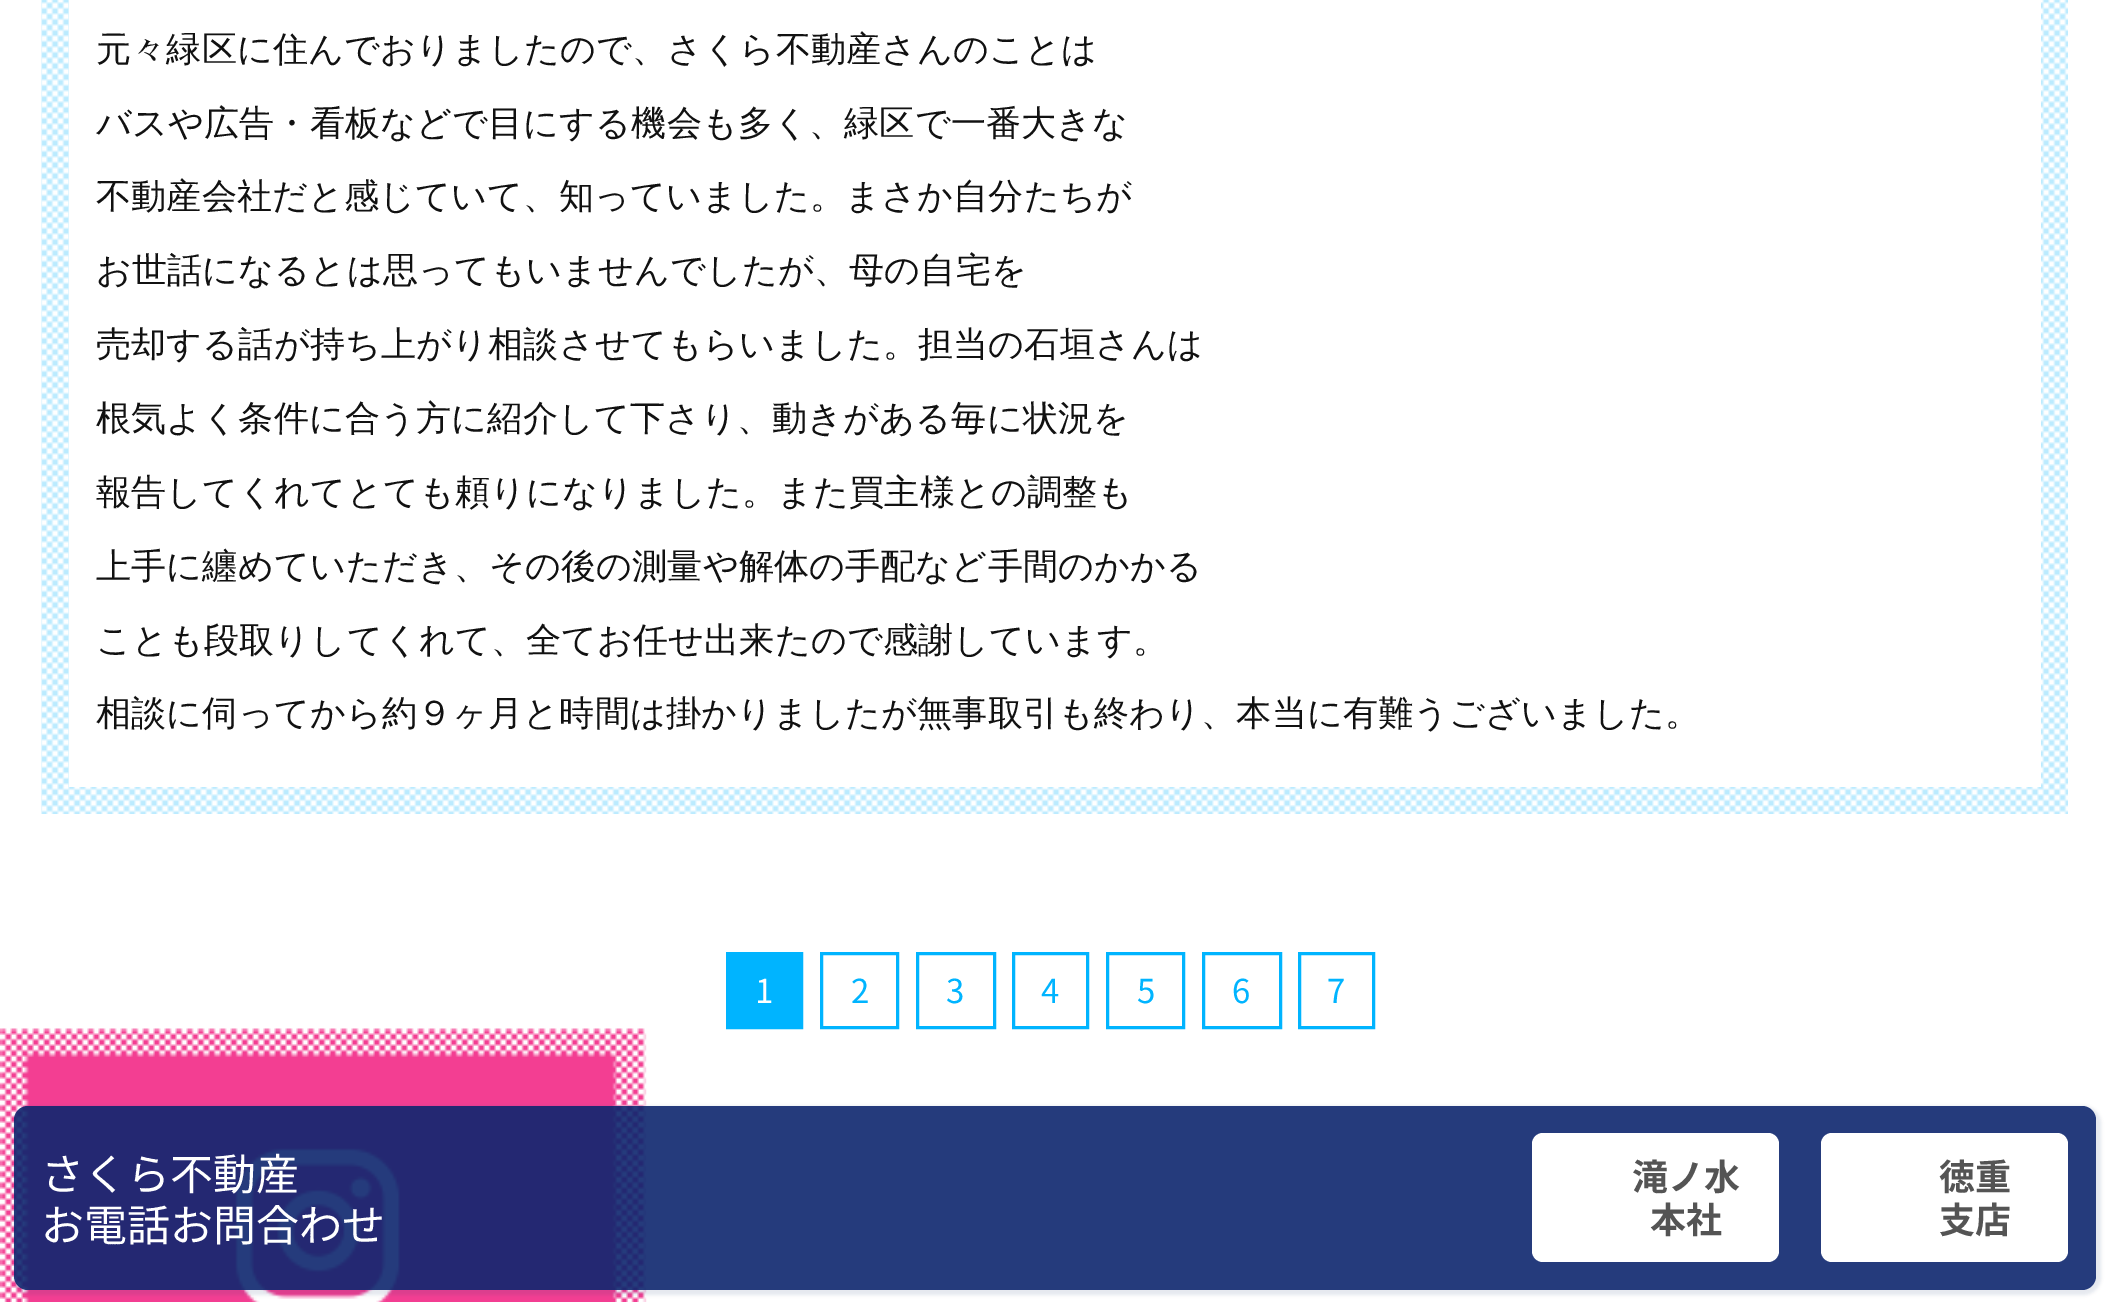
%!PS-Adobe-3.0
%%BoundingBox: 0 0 2108 1302
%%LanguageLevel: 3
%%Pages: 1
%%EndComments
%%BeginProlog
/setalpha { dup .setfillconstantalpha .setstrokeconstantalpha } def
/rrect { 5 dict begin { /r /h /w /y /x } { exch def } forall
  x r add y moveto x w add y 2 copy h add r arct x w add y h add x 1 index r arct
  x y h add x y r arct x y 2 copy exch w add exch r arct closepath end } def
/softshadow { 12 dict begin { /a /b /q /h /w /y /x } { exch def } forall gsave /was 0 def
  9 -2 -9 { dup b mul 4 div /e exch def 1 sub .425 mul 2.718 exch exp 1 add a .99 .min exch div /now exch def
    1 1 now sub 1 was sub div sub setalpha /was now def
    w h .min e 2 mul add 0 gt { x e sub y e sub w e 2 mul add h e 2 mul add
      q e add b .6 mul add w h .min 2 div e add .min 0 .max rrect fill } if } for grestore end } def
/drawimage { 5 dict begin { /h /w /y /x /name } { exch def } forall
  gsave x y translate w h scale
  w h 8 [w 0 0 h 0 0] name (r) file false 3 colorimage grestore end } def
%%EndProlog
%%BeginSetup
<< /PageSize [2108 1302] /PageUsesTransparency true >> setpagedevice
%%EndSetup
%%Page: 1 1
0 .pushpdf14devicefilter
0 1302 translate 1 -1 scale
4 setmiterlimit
1 setgray
0 0 2108 1302 rectfill
(images/1.raw) 41 0 2027 814 drawimage
69 0 1972 787 rectfill
0 0.706 1 setrgbcolor
3 setlinewidth
727.5 953.5 74 74 rectstroke
729 955 71 71 rectfill
821.5 953.5 76 74 rectstroke
917.5 953.5 77 74 rectstroke
1013.5 953.5 74 74 rectstroke
1107.5 953.5 76 74 rectstroke
1203.5 953.5 77 74 rectstroke
1299.5 953.5 74 74 rectstroke
(images/2.raw) 0 1028 647 274 drawimage
gsave
newpath 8 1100 moveto 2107 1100 lineto 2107 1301 lineto 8 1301 lineto closepath 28 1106 moveto 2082 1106 lineto 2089.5 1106 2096 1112.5 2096 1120 curveto 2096 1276 lineto 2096 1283.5 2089.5 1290 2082 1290 curveto 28 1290 lineto 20.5 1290 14 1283.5 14 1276 curveto 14 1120 lineto 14 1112.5 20.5 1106 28 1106 curveto closepath eoclip newpath
0.051 0.149 0.431 setrgbcolor
14 1106 2087 189 17 1.5 0.1 softshadow
grestore
0.9 setalpha
0.051 0.149 0.431 setrgbcolor
14 1106 2082 184 14 rrect fill
1 setalpha
1 setgray
1532 1133 247 129 11 rrect fill
1821 1133 247 129 11 rrect fill
/WenQuanYiZenHei-Medium [35.2 0 0 -35.2 0 0] selectfont
0.067 setgray
96 61 moveto (元々緑区に住んでおりましたので、さくら不動産さんのことは) show
96 135 moveto (バスや広告・看板などで目にする機会も多く、緑区で一番大きな) show
96 208 moveto (不動産会社だと感じていて、知っていました。まさか自分たちが) show
96 282 moveto (お世話になるとは思ってもいませんでしたが、母の自宅を) show
96 356 moveto (売却する話が持ち上がり相談させてもらいました。担当の石垣さんは) show
96 430 moveto (根気よく条件に合う方に紹介して下さり、動きがある毎に状況を) show
96 504 moveto (報告してくれてとても頼りになりました。また買主様との調整も) show
96 578 moveto (上手に纏めていただき、その後の測量や解体の手配など手間のかかる) show
96 652 moveto (ことも段取りしてくれて、全てお任せ出来たので感謝しています。) show
96 725 moveto (相談に伺ってから約９ヶ月と時間は掛かりましたが無事取引も終わり、本当に有難うございました。) show
/NotoSansJP-Regular [33 0 0 -33 0 0] selectfont
1 setgray
755 1003 moveto (1) show
0 0.706 1 setrgbcolor
851 1003 moveto (2) show
946 1003 moveto (3) show
1041 1003 moveto (4) show
1137 1003 moveto (5) show
1232 1003 moveto (6) show
1327 1003 moveto (7) show
/NotoSansJP-Regular [43 0 0 -43 0 0] selectfont
1 setgray
41 1190 moveto (さくら不動産) show
41 1241 moveto (お電話お問合わせ) show
/NotoSansJP-Bold [36 0 0 -36 0 0] selectfont
0.329 setgray
1632 1190 moveto (滝ノ水) show
1650 1233 moveto (本社) show
1939 1190 moveto (徳重) show
1939 1233 moveto (支店) show
.poppdf14devicefilter showpage
%%EOF
